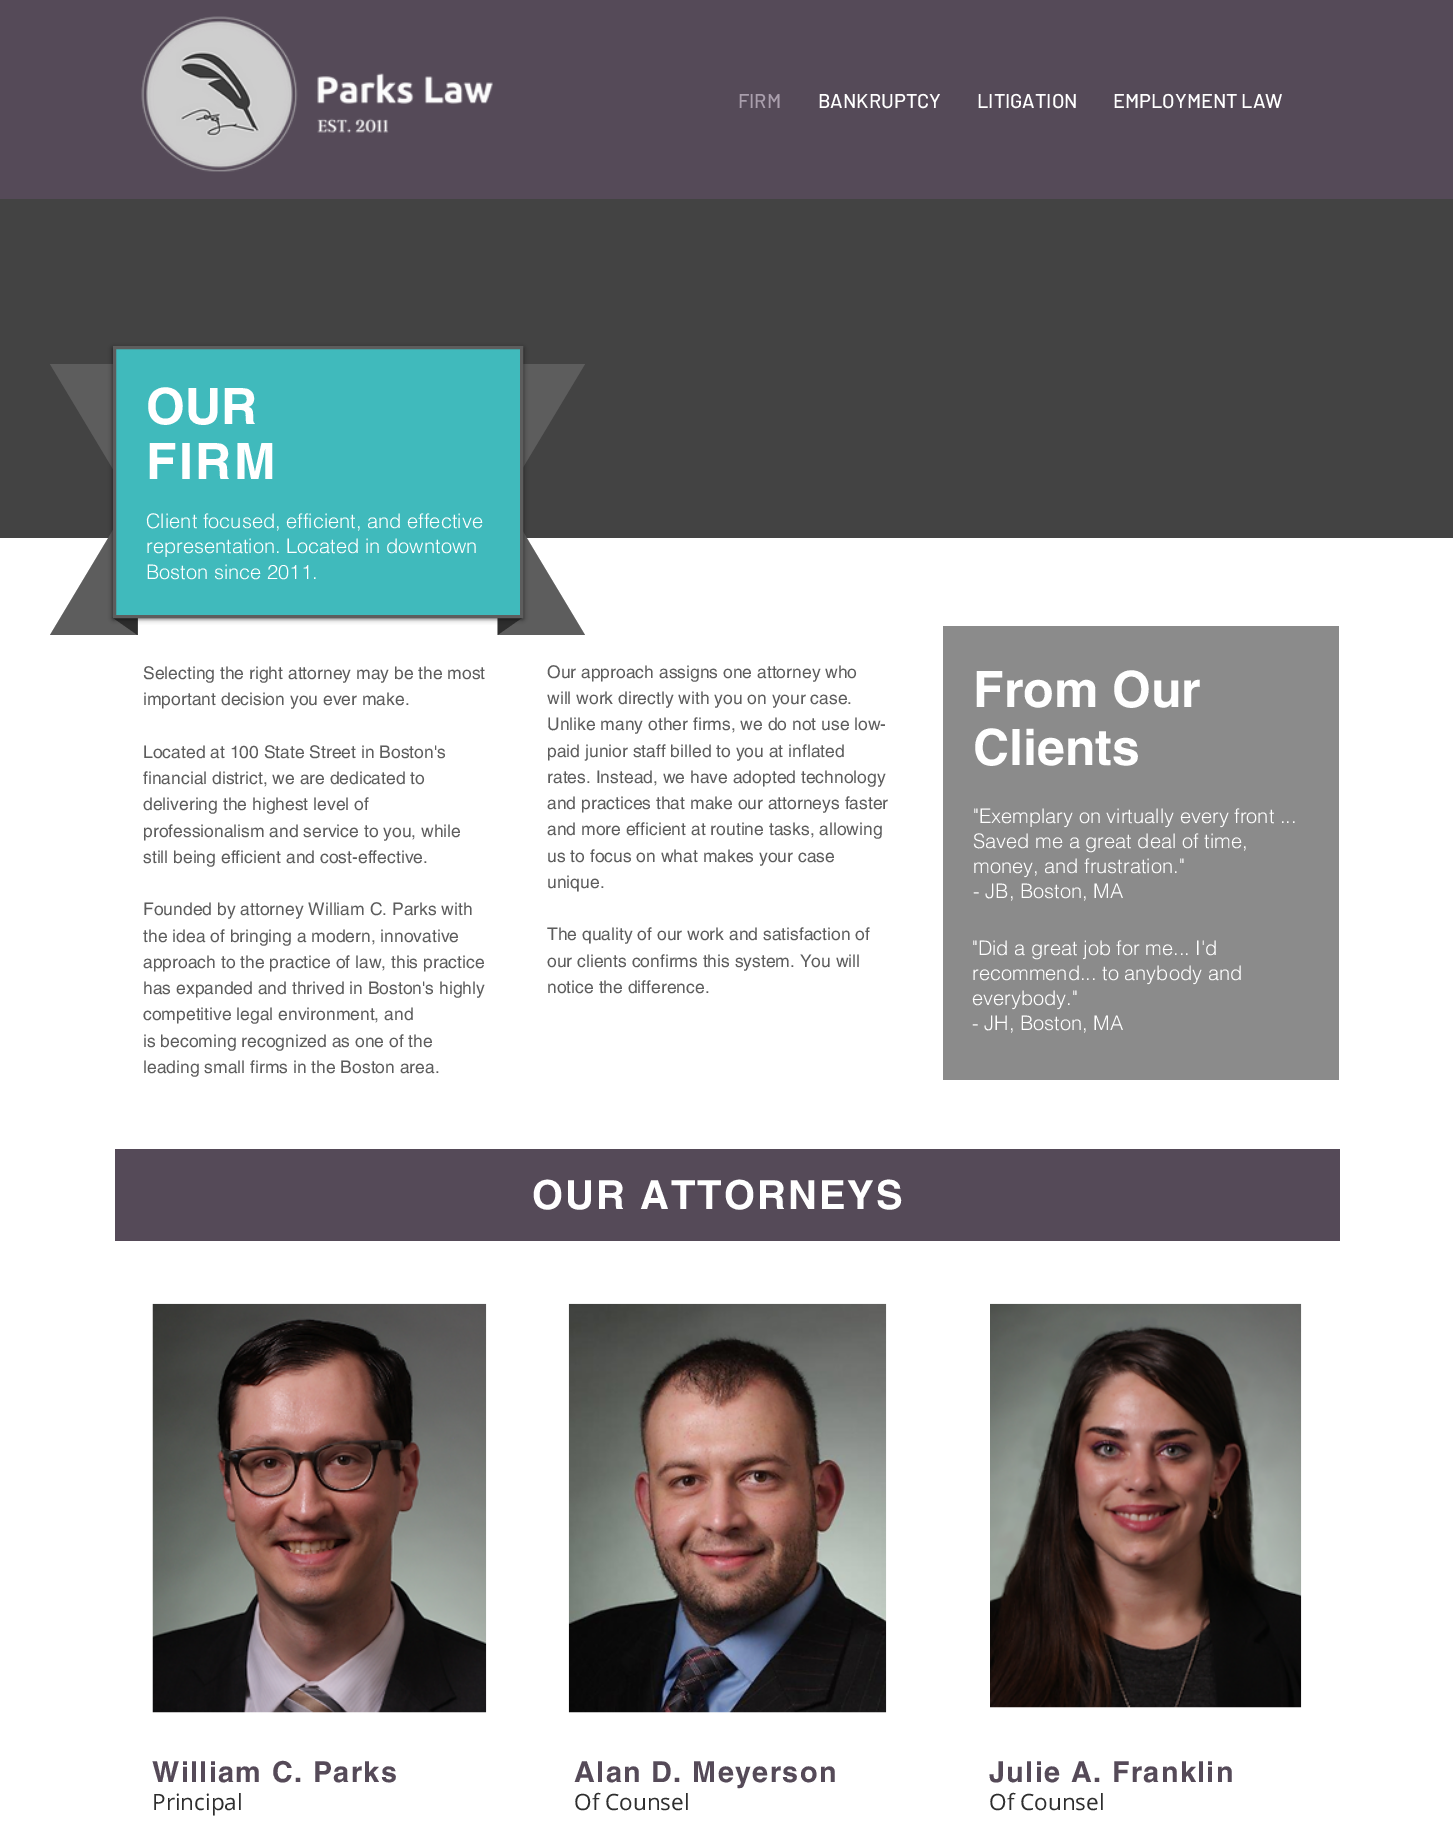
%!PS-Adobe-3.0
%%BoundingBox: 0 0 1453 1830
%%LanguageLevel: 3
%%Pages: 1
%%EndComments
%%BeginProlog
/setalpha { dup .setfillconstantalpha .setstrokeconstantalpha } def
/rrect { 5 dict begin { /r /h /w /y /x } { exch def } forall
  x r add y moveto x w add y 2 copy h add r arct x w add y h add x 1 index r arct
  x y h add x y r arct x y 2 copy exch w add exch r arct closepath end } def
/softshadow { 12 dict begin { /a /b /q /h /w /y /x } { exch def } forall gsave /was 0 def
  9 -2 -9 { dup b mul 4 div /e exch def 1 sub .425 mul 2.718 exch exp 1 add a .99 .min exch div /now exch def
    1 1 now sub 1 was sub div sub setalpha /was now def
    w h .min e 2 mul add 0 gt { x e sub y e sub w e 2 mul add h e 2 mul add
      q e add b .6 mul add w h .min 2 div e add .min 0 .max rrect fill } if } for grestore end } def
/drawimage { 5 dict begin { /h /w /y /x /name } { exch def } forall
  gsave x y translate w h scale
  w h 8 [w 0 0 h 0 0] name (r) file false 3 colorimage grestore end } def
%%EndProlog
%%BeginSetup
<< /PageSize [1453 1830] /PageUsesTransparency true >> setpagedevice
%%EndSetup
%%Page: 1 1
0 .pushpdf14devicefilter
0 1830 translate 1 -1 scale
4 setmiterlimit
1 setgray
0 0 1453 1830 rectfill
0.333 0.29 0.345 setrgbcolor
0 0 1453 199 rectfill
(images/1.raw) 141 16 352 156 drawimage
0.263 setgray
0 199 1453 339 rectfill
0.365 setgray
newpath 50 364 moveto 138 364 lineto 138 489 lineto 125 489 lineto closepath fill
newpath 498 364 moveto 585 364 lineto 510 489 lineto 498 489 lineto closepath fill
newpath 138 635 moveto 50 635 lineto 125 510 lineto 138 510 lineto closepath fill
newpath 585 635 moveto 498 635 lineto 498 510 lineto 510 510 lineto closepath fill
0.18 setgray
newpath 137.5 617.5 moveto 137.5 635 lineto 112.5 617.5 lineto closepath fill
newpath 497.5 635 moveto 497.5 617.5 lineto 522.5 617.5 lineto closepath fill
0 setgray
113 348 410 271 0 2.5 0.6 softshadow
0.251 0.729 0.737 setrgbcolor
newpath 114.5 347.5 moveto 521.5 347.5 lineto 521.5 616.5 lineto 114.5 616.5 lineto closepath gsave fill grestore
0.365 setgray
3 setlinewidth
stroke
0.545 setgray
943 626 396 454 rectfill
0.333 0.29 0.345 setrgbcolor
115 1149 1225 92 rectfill
(images/2.raw) 152 1303 335 410 drawimage
(images/3.raw) 568 1303 319 410 drawimage
(images/4.raw) 990 1303 312 405 drawimage
/Barlow-Medium [20 0 0 -20 0 0] selectfont
0.667 0.624 0.678 setrgbcolor
738 108 moveto (FIRM) show
1 setgray
818 108 moveto (BANKRUPTCY) show
977 108 moveto (LITIGATION) show
1113 108 moveto (EMPLOYMENT LAW) show
/helvetica-Bold [50 0 0 -50 0 0] selectfont
146 424 moveto (OUR) show
146 479 moveto 2.5 0 (FIRM) ashow
/helvetica-Light [20 0 0 -20 0 0] selectfont
146 528 moveto (Client focused, efficient, and effective) show
146 553 moveto (representation. Located in downtown) show
146 579 moveto (Boston since 2011.) show
/helvetica-Regular [17.5 0 0 -17.5 0 0] selectfont
0.365 setgray
143 679 moveto (Selecting the right attorney may be the most) show
143 705 moveto (important decision you ever make.) show
143 758 moveto (Located at 100 State Street in Boston's) show
143 784 moveto (financial district, we are dedicated to) show
143 810 moveto (delivering the highest level of) show
143 837 moveto (professionalism and service to you, while) show
143 863 moveto (still being efficient and cost-effective.) show
143 915 moveto (Founded by attorney William C. Parks with) show
143 942 moveto (the idea of bringing a modern, innovative) show
143 968 moveto (approach to the practice of law, this practice) show
143 994 moveto (has expanded and thrived in Boston's highly) show
143 1020 moveto (competitive legal environment, and) show
143 1047 moveto (is becoming recognized as one of the) show
143 1073 moveto (leading small firms in the Boston area.) show
547 678 moveto (Our approach assigns one attorney who) show
547 704 moveto (will work directly with you on your case.) show
547 730 moveto (Unlike many other firms, we do not use low-) show
547 757 moveto (paid junior staff billed to you at inflated) show
547 783 moveto (rates. Instead, we have adopted technology) show
547 809 moveto (and practices that make our attorneys faster) show
547 835 moveto (and more efficient at routine tasks, allowing) show
547 862 moveto (us to focus on what makes your case) show
547 888 moveto (unique.) show
547 940 moveto (The quality of our work and satisfaction of) show
547 967 moveto (our clients confirms this system. You will) show
547 993 moveto (notice the difference.) show
/helvetica-Bold [50 0 0 -50 0 0] selectfont
1 setgray
973 707 moveto (From Our) show
973 765 moveto (Clients) show
/helvetica-Light [20 0 0 -20 0 0] selectfont
973 823 moveto ("Exemplary on virtually every front ...) show
973 848 moveto (Saved me a great deal of time,) show
973 873 moveto (money, and frustration.") show
973 898 moveto (- JB, Boston, MA) show
972 955 moveto ("Did a great job for me... I'd) show
972 980 moveto (recommend... to anybody and) show
972 1005 moveto (everybody.") show
972 1030 moveto (- JH, Boston, MA) show
/helvetica-Bold [40 0 0 -40 0 0] selectfont
532 1209 moveto 2 0 (OUR ATTORNEYS) ashow
/helvetica-Bold [28.75 0 0 -28.75 0 0] selectfont
0.333 0.29 0.345 setrgbcolor
152 1782 moveto 1.4 0 (William C. Parks) ashow
/OpenSans-Regular [22.5 0 0 -22.5 0 0] selectfont
0.18 setgray
152 1810 moveto (Principal) show
/helvetica-Bold [28.75 0 0 -28.75 0 0] selectfont
0.333 0.29 0.345 setrgbcolor
574 1782 moveto 1.4 0 (Alan D. Meyerson) ashow
/OpenSans-Regular [22.5 0 0 -22.5 0 0] selectfont
0.18 setgray
574 1810 moveto (Of Counsel) show
/helvetica-Bold [28.75 0 0 -28.75 0 0] selectfont
0.333 0.29 0.345 setrgbcolor
989 1782 moveto 1.4 0 (Julie A. Franklin) ashow
/OpenSans-Regular [22.5 0 0 -22.5 0 0] selectfont
0.18 setgray
989 1810 moveto (Of Counsel) show
.poppdf14devicefilter showpage
%%EOF
